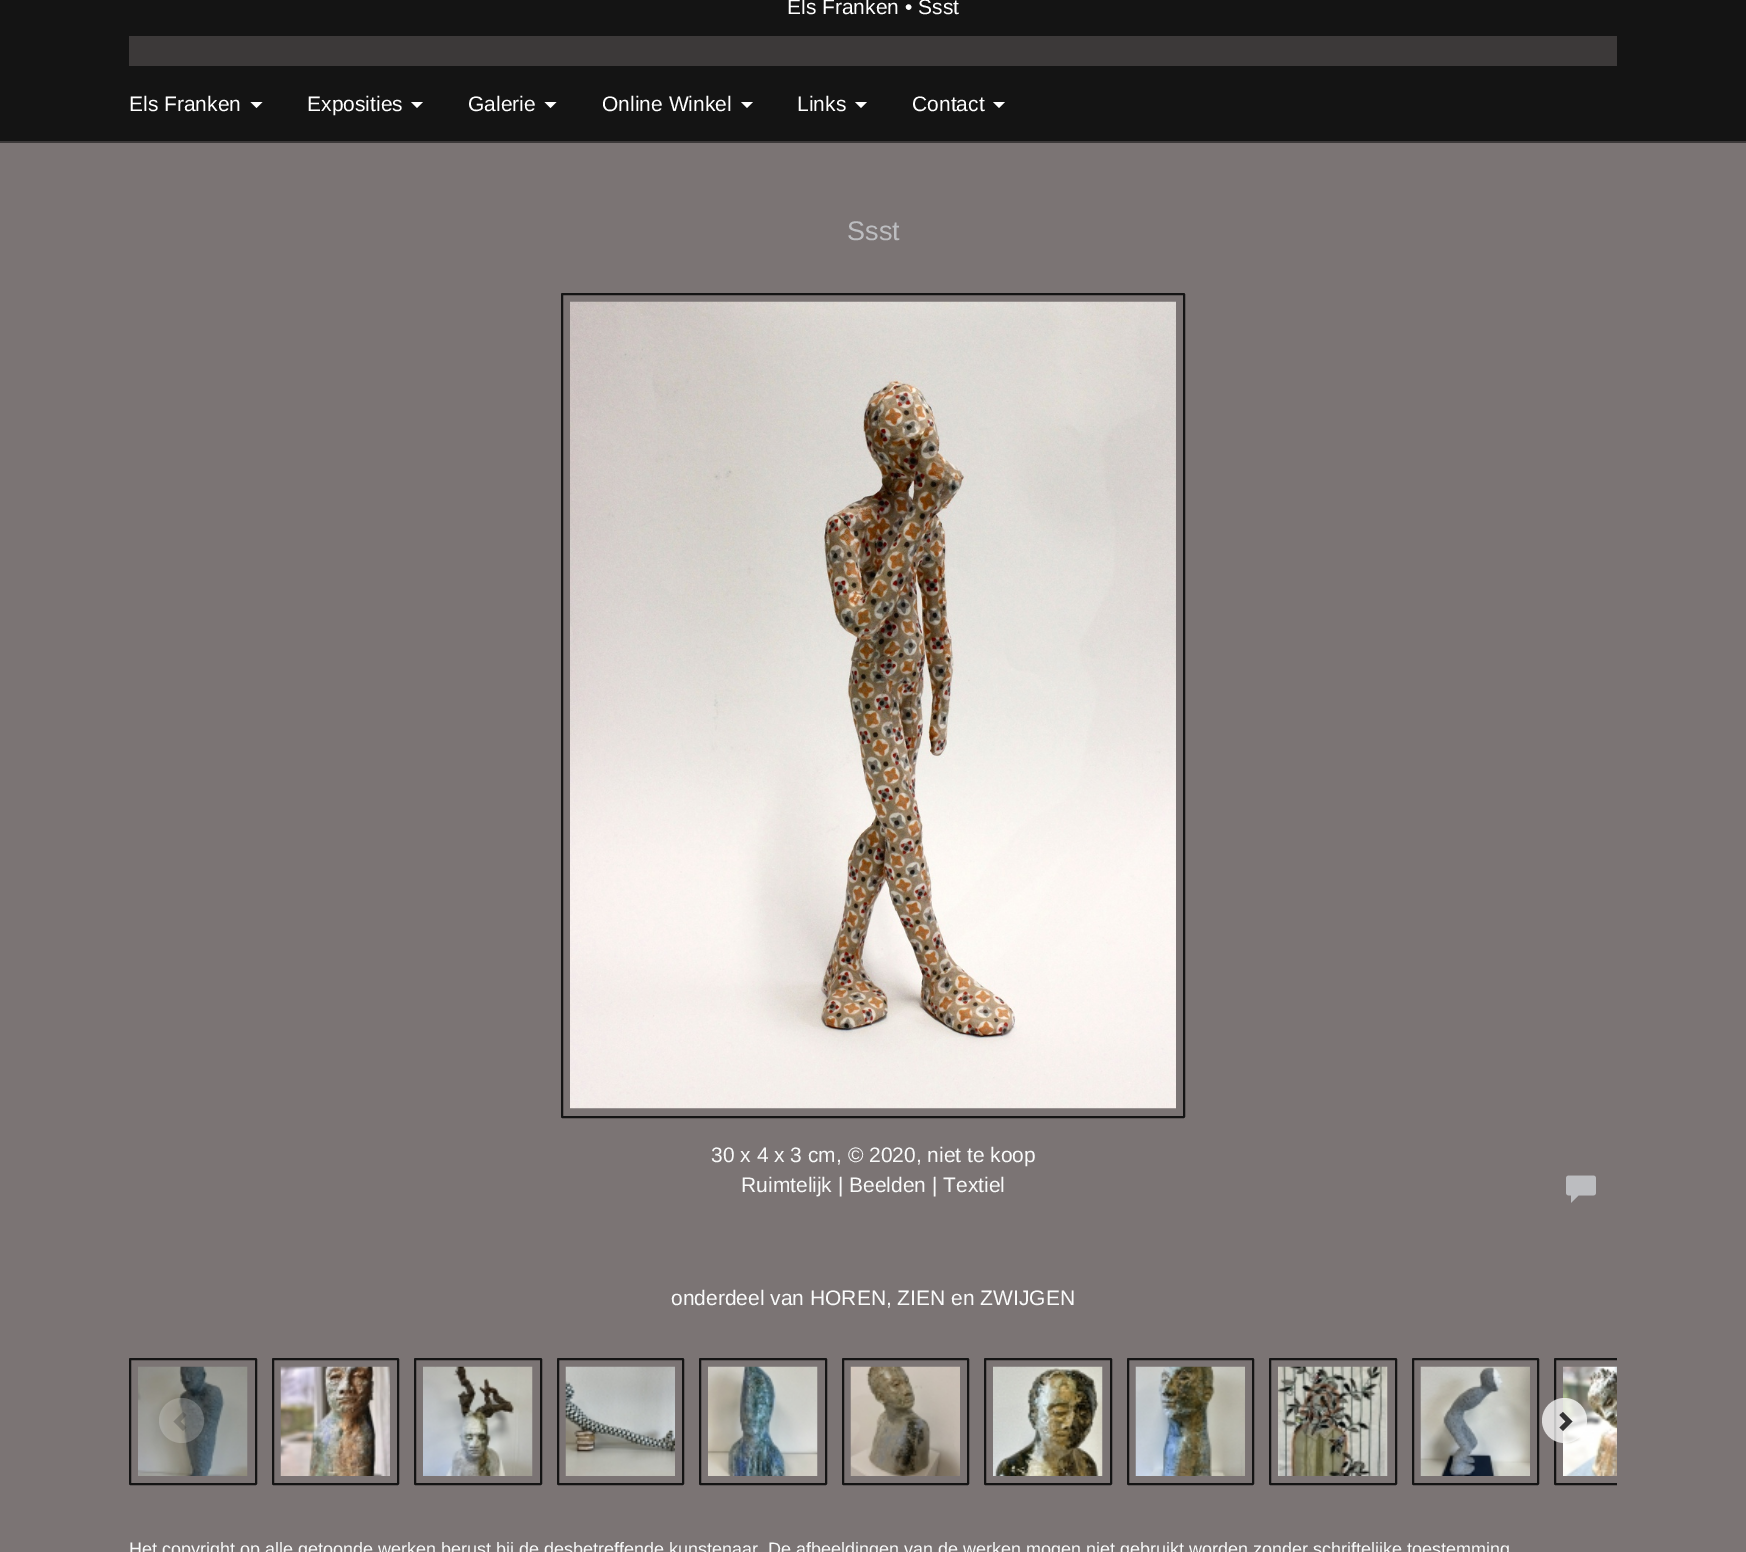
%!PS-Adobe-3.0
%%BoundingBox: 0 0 1746 1552
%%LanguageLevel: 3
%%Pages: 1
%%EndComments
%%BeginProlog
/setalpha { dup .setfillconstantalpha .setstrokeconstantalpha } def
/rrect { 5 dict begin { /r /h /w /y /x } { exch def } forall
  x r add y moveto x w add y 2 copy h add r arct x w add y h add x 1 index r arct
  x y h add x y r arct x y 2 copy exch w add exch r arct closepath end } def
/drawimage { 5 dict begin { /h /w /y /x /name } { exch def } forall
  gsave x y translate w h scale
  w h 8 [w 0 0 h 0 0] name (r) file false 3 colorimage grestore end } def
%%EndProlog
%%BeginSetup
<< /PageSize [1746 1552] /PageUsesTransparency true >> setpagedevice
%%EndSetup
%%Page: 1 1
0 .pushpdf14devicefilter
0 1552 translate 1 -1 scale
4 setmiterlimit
0.482 0.455 0.455 setrgbcolor
0 0 1746 1552 rectfill
0.078 setgray
0 0 1746 141 rectfill
0.235 0.224 0.224 setrgbcolor
129 36 1488 30 rectfill
0 141 1746 2 rectfill
1 setgray
newpath 250.5 102 moveto 262.5 102 lineto 256.5 108 lineto closepath fill
newpath 411 102 moveto 423 102 lineto 417 108 lineto closepath fill
newpath 544.5 102 moveto 556.5 102 lineto 550.5 108 lineto closepath fill
newpath 741 102 moveto 753 102 lineto 747 108 lineto closepath fill
newpath 855 102 moveto 867 102 lineto 861 108 lineto closepath fill
newpath 993 102 moveto 1005 102 lineto 999 108 lineto closepath fill
0.078 setgray
2 setlinewidth
562 294 622 823 0.5 rrect stroke
(images/1.raw) 570 301 606 808 drawimage
(images/2.raw) 1566 1175 30 28 drawimage
130 1359 126 125 0.5 rrect stroke
(images/3.raw) 138 1366 110 110 drawimage
273 1359 125 125 0.5 rrect stroke
(images/4.raw) 280 1366 110 110 drawimage
415 1359 126 125 0.5 rrect stroke
(images/5.raw) 423 1366 110 110 drawimage
558 1359 125 125 0.5 rrect stroke
(images/6.raw) 565 1366 110 110 drawimage
700 1359 126 125 0.5 rrect stroke
(images/7.raw) 708 1366 110 110 drawimage
843 1359 125 125 0.5 rrect stroke
(images/8.raw) 850 1366 110 110 drawimage
985 1359 126 125 0.5 rrect stroke
(images/9.raw) 993 1366 110 110 drawimage
1128 1359 125 125 0.5 rrect stroke
(images/10.raw) 1135 1366 110 110 drawimage
1270 1359 126 125 0.5 rrect stroke
(images/11.raw) 1278 1366 110 110 drawimage
1413 1359 125 125 0.5 rrect stroke
(images/12.raw) 1420 1366 110 110 drawimage
gsave
129 1350 1488 143 rectclip
1555 1359 126 125 0.5 rrect stroke
grestore
(images/13.raw) 1563 1366 54 110 drawimage
0.22 setalpha
1 setgray
newpath 181.5 1420.5 22.5 0 360 arc closepath fill
0.3 setalpha
0.2 setgray
newpath 186.5 1415 moveto 180.5 1421.5 lineto 186.5 1427.5 lineto 183 1431 lineto 173.5 1421.5 lineto 183 1412 lineto closepath fill
0.75 setalpha
1 setgray
newpath 1564.5 1420.5 22.5 0 360 arc closepath fill
1 setalpha
0.2 setgray
newpath 1572.5 1421.5 moveto 1563 1431 lineto 1559.5 1427.5 lineto 1565.5 1421.5 lineto 1559.5 1415 lineto 1563 1412 lineto closepath fill
/LiberationSans-Regular [21 0 0 -21 0 0] selectfont
1 setgray
787 14 moveto (Els Franken • Ssst) show
129 111 moveto (Els Franken) show
307 111 moveto (Exposities) show
468 111 moveto (Galerie) show
602 111 moveto (Online Winkel) show
797 111 moveto (Links) show
912 111 moveto (Contact) show
/LiberationSans-Regular [27 0 0 -27 0 0] selectfont
0.737 0.741 0.753 setrgbcolor
847 240 moveto (Ssst) show
/LiberationSans-Regular [21 0 0 -21 0 0] selectfont
0.976 0.98 0.98 setrgbcolor
711 1162 moveto (30 x 4 x 3 cm, © 2020, niet te koop) show
741 1192 moveto (Ruimtelijk | Beelden | Textiel) show
671 1305 moveto (onderdeel van HOREN, ZIEN en ZWIJGEN) show
/LiberationSans-Regular [18 0 0 -18 0 0] selectfont
129 1555 moveto (Het copyright op alle getoonde werken berust bij de desbetreffende kunstenaar. De afbeeldingen van de werken mogen niet gebruikt worden zonder schriftelijke toestemming) show
.poppdf14devicefilter showpage
%%EOF
